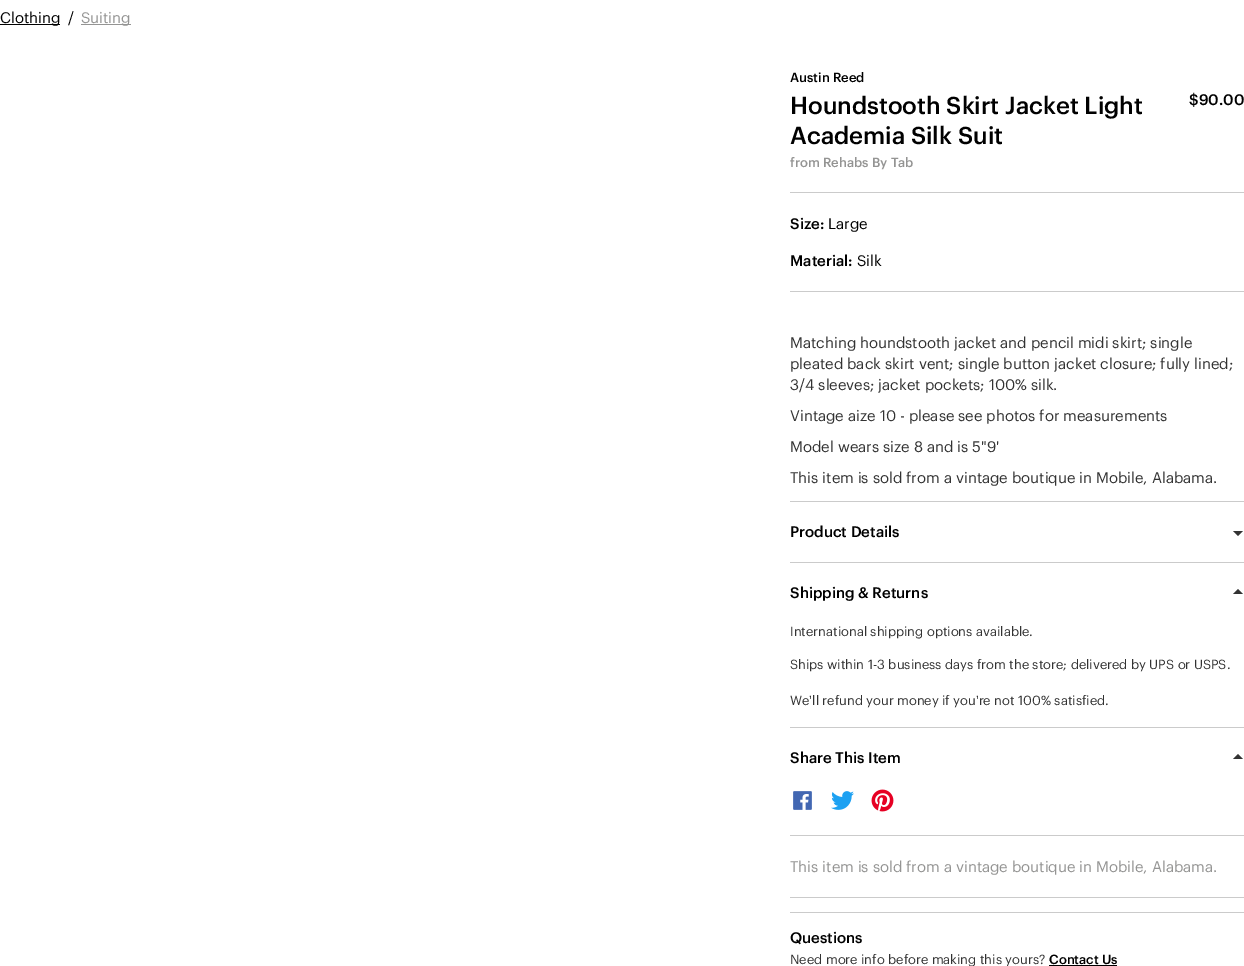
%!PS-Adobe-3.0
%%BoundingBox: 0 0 1244 966
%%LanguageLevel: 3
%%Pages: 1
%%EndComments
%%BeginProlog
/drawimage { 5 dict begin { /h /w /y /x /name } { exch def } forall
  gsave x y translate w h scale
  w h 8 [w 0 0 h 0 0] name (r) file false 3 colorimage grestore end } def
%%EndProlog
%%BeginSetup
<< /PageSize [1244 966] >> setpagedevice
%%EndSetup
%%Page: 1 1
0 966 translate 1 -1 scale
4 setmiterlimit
1 setgray
0 0 1244 966 rectfill
0 setgray
0 24 60 1 rectfill
0.58 0.58 0.576 setrgbcolor
81 24 50 1 rectfill
0.796 setgray
790 192 454 1 rectfill
790 291 454 1 rectfill
790 501 454 1 rectfill
0.2 setgray
newpath 1243 531 moveto 1238 536 lineto 1233 531 lineto closepath eofill
0.796 setgray
790 562 454 1 rectfill
0.2 setgray
newpath 1233 594 moveto 1238 589 lineto 1243 594 lineto closepath eofill
0.796 setgray
790 727 454 1 rectfill
0.2 setgray
newpath 1233 759 moveto 1238 754 lineto 1243 759 lineto closepath eofill
(images/1.raw) 793 791 19 19 drawimage
(images/2.raw) 831 791 23 19 drawimage
(images/3.raw) 871 789 23 23 drawimage
0.796 setgray
790 835 454 1 rectfill
790 897 454 1 rectfill
790 912 454 1 rectfill
0 setgray
1049 965 68 1 rectfill
/Graphik-Regular [15 0 0 -15 0 0] selectfont
0 23 moveto (Clothing) show
68 23 moveto (/) show
0.58 0.58 0.576 setrgbcolor
81 23 moveto (Suiting) show
/Graphik-Medium [13 0 0 -13 0 0] selectfont
0 setgray
790 82 moveto (Austin Reed) show
/Graphik-Medium [24 0 0 -24 0 0] selectfont
790 114 moveto (Houndstooth Skirt Jacket Light) show
790 144 moveto (Academia Silk Suit) show
/Graphik-Medium [15 0 0 -15 0 0] selectfont
1189 105 moveto ($90.00) show
/Graphik-Medium [13 0 0 -13 0 0] selectfont
0.58 0.58 0.576 setrgbcolor
790 167 moveto (from Rehabs By Tab) show
/Graphik-Medium [15 0 0 -15 0 0] selectfont
0 setgray
790 229 moveto (Size:) show
/Graphik-Regular [15 0 0 -15 0 0] selectfont
828 229 moveto (Large) show
/Graphik-Medium [15 0 0 -15 0 0] selectfont
790 266 moveto (Material:) show
/Graphik-Regular [15 0 0 -15 0 0] selectfont
857 266 moveto (Silk) show
0.2 setgray
790 348 moveto (Matching houndstooth jacket and pencil midi skirt; single) show
790 369 moveto (pleated back skirt vent; single button jacket closure; fully lined;) show
790 390 moveto (3/4 sleeves; jacket pockets; 100% silk.) show
790 421 moveto (Vintage aize 10 - please see photos for measurements) show
790 452 moveto (Model wears size 8 and is 5"9') show
790 483 moveto (This item is sold from a vintage boutique in Mobile, Alabama.) show
/Graphik-Medium [15 0 0 -15 0 0] selectfont
0 setgray
790 537 moveto (Product Details) show
790 598 moveto (Shipping & Returns) show
/Graphik-Regular [13 0 0 -13 0 0] selectfont
0.2 setgray
790 636 moveto (International shipping options available.) show
790 669 moveto (Ships within 1-3 business days from the store; delivered by UPS or USPS.) show
790 705 moveto (We'll refund your money if you're not 100% satisfied.) show
/Graphik-Medium [15 0 0 -15 0 0] selectfont
0 setgray
790 763 moveto (Share This Item) show
/Graphik-Regular [15 0 0 -15 0 0] selectfont
0.58 0.58 0.576 setrgbcolor
790 872 moveto (This item is sold from a vintage boutique in Mobile, Alabama.) show
/Graphik-Medium [15 0 0 -15 0 0] selectfont
0 setgray
790 943 moveto (Questions) show
/Graphik-Regular [13 0 0 -13 0 0] selectfont
0.2 setgray
790 964 moveto (Need more info before making this yours?) show
/Graphik-Medium [13 0 0 -13 0 0] selectfont
0 setgray
1049 964 moveto (Contact Us) show
showpage
%%EOF
